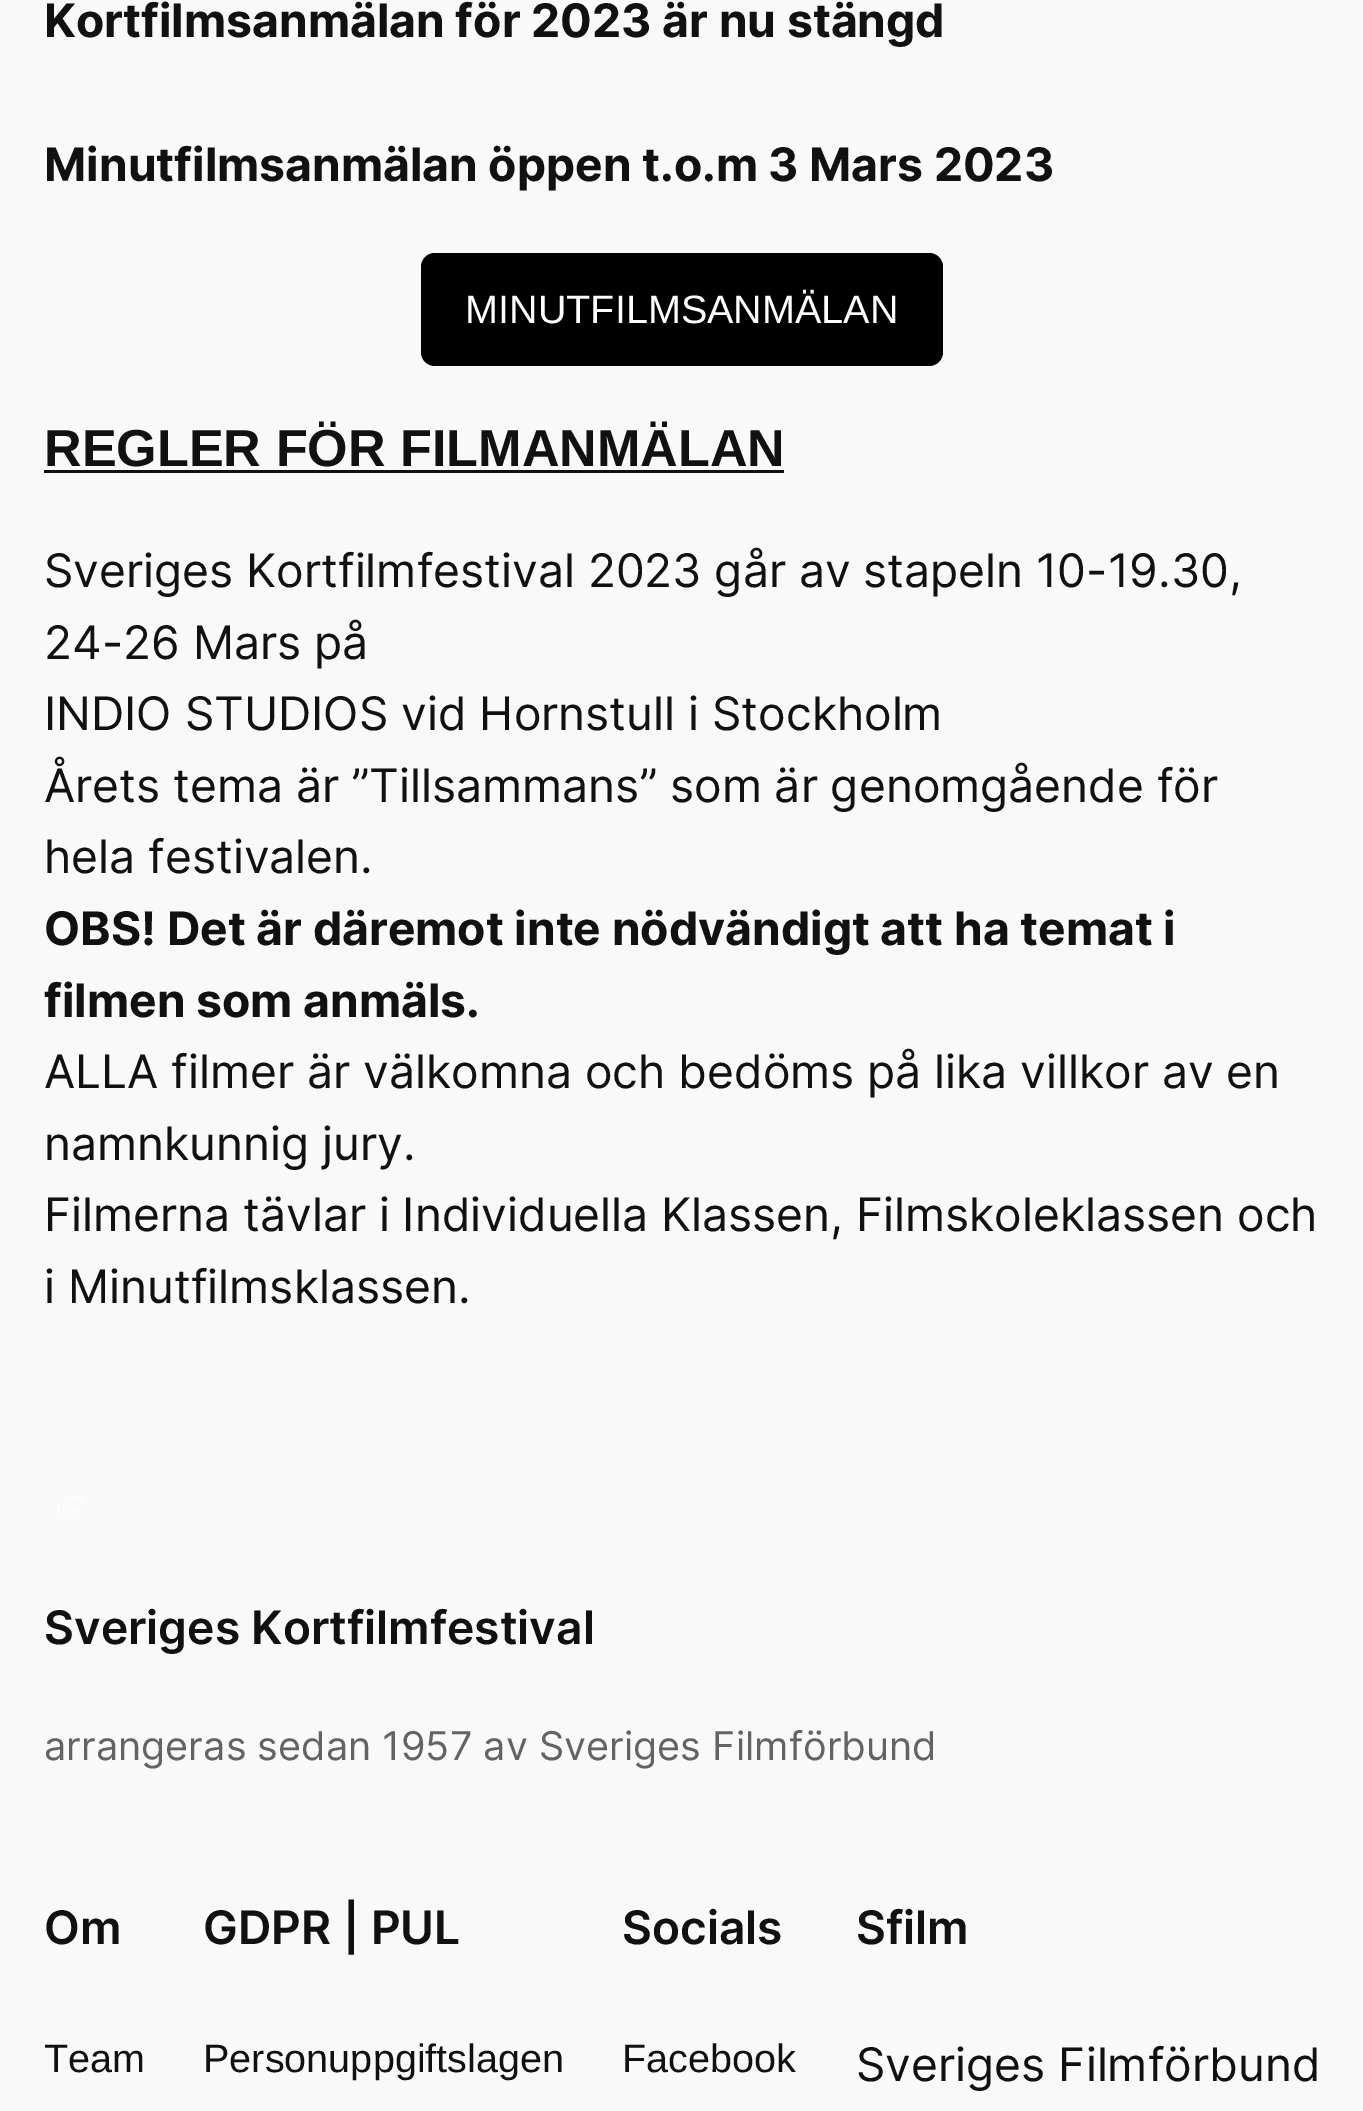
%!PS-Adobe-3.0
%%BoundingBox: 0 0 1363 2111
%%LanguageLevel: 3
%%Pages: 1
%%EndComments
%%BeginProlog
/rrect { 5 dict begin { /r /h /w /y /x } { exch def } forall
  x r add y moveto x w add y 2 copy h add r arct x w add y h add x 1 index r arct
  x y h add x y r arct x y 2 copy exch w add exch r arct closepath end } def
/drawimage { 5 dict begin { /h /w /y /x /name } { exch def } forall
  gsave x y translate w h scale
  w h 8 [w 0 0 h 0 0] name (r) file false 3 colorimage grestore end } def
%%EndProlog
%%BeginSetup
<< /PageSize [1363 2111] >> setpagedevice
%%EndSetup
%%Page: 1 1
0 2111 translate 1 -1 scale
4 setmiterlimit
0.976 setgray
0 0 1363 2111 rectfill
0 setgray
421 253 522 113 14 rrect fill
0.067 setgray
44 470 740 3 rectfill
(images/1.raw) 57 1496 27 27 drawimage
/Inter-Bold [46.2 0 0 -46.2 0 0] selectfont
44 37 moveto (Kortfilmsanmälan för) show
531 37 moveto (2023 är nu stängd) show
44 181 moveto -0.25 0 32 (Minutfilmsanmälan öppen t.o.m 3 Mars 2023) widthshow
/LiberationSans-Regular [39.6 0 0 -39.6 0 0] selectfont
1 setgray
465 323 moveto (MINUTFILMSANMÄLAN) show
/LiberationSans-Bold [52.1 0 0 -52.1 0 0] selectfont
0.067 setgray
44 466 moveto (REGLER FÖR FILMANMÄLAN) show
/Inter-Regular [46.2 0 0 -46.2 0 0] selectfont
44 587 moveto -0.25 0 32 (Sveriges Kortfilmfestival 2023 går av stapeln 10-19.30,) widthshow
44 659 moveto (24-26 Mars på) show
44 730 moveto (INDIO STUDIOS vid Hornstull i Stockholm) show
44 802 moveto -0.25 0 32 (Årets tema är ”Tillsammans” som är genomgående för) widthshow
44 873 moveto (hela festivalen.) show
/Inter-Bold [46.2 0 0 -46.2 0 0] selectfont
44 945 moveto -0.1 0 32 (OBS! Det är däremot inte nödvändigt att ha temat i) widthshow
44 1017 moveto (filmen som anmäls.) show
/Inter-Regular [46.2 0 0 -46.2 0 0] selectfont
44 1088 moveto -0.1 0 32 (ALLA filmer är välkomna och bedöms på lika villkor av en) widthshow
44 1160 moveto (namnkunnig jury.) show
44 1231 moveto -0.25 0 32 (Filmerna tävlar i Individuella Klassen, Filmskoleklassen och) widthshow
44 1303 moveto (i Minutfilmsklassen.) show
/Inter-SemiBold [46.2 0 0 -46.2 0 0] selectfont
44 1644 moveto (Sveriges Kortfilmfestival) show
/Inter-Regular [39.6 0 0 -39.6 0 0] selectfont
0.388 setgray
44 1760 moveto (arrangeras sedan 1957 av Sveriges Filmförbund) show
/Inter-SemiBold [46.2 0 0 -46.2 0 0] selectfont
0.067 setgray
44 1944 moveto (Om) show
/LiberationSans-Regular [39.6 0 0 -39.6 0 0] selectfont
44 2072 moveto (Team) show
/Inter-SemiBold [46.2 0 0 -46.2 0 0] selectfont
203 1944 moveto (GDPR | PUL) show
/LiberationSans-Regular [39.6 0 0 -39.6 0 0] selectfont
203 2072 moveto (Personuppgiftslagen) show
/Inter-SemiBold [46.2 0 0 -46.2 0 0] selectfont
622 1944 moveto (Socials) show
/LiberationSans-Regular [39.6 0 0 -39.6 0 0] selectfont
622 2072 moveto (Facebook) show
/Inter-SemiBold [46.2 0 0 -46.2 0 0] selectfont
856 1944 moveto (Sfilm) show
/Inter-Regular [46.2 0 0 -46.2 0 0] selectfont
856 2081 moveto (Sveriges Filmförbund) show
showpage
%%EOF
